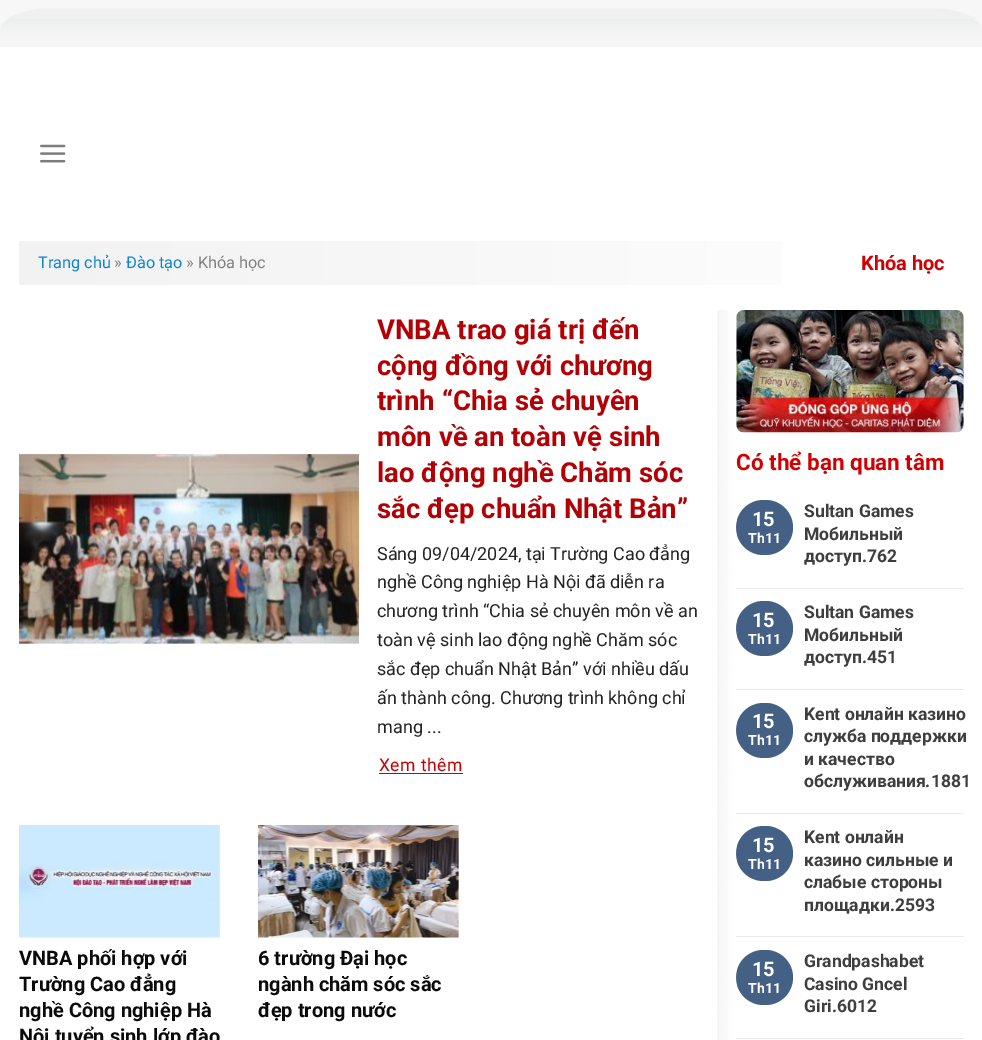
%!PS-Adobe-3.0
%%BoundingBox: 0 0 982 1040
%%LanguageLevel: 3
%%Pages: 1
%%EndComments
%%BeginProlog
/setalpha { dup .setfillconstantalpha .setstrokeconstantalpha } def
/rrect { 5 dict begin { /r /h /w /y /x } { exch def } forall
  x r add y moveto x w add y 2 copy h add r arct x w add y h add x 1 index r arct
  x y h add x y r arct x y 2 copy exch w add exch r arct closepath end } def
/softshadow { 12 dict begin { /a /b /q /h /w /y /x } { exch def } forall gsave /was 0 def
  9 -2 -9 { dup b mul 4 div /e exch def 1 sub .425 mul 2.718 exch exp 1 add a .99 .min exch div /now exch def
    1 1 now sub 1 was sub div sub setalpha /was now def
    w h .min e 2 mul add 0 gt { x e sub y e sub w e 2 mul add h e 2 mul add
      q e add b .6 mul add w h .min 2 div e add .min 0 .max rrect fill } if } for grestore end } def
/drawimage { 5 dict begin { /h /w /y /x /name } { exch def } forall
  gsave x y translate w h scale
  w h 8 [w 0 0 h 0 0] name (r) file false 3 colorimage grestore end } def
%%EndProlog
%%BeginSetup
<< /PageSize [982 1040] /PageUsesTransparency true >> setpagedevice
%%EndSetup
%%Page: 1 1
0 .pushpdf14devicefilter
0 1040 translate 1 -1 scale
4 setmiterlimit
1 setgray
0 0 982 1040 rectfill
0.8 setgray
-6 48 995 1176 25 53 1 softshadow
1 setgray
0 19 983 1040 19 rrect fill
0.9 setalpha
newpath 13 19 moveto 970 19 lineto 977 19 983 25 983 32 curveto 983 241 lineto 0 241 lineto 0 32 lineto 0 25 6 19 13 19 curveto closepath fill
1 setalpha
(images/1.raw) 0 19 982 28 drawimage
(images/2.raw) 40 144 26 19 drawimage
gsave newpath 19 241 moveto 782 241 lineto 782 285 lineto 19 285 lineto closepath clip newpath
<< /ShadingType 2 /ColorSpace /DeviceRGB /Coords [19 263 964 263] /Extend [true true] /Function << /FunctionType 2 /Domain [0 1] /C0 [0.949 0.949 0.949] /C1 [1 1 1] /N 1 >> >> shfill grestore
(images/3.raw) 19 454 340 190 drawimage
0.776 0 0.016 setrgbcolor
379 773 84 1 rectfill
(images/4.raw) 19 825 201 113 drawimage
(images/5.raw) 258 825 201 113 drawimage
(images/7.raw) 736 310 228 123 drawimage
0.267 0.376 0.518 setrgbcolor
736 500 57 55 27.5 rrect fill
0.925 setgray
736 588 228 1 rectfill
0.267 0.376 0.518 setrgbcolor
736 601 57 55 27.5 rrect fill
0.925 setgray
736 689 228 1 rectfill
0.267 0.376 0.518 setrgbcolor
736 703 57 55 27.5 rrect fill
0.925 setgray
736 813 228 1 rectfill
0.267 0.376 0.518 setrgbcolor
736 826 57 55 27.5 rrect fill
0.925 setgray
736 936 228 1 rectfill
0.267 0.376 0.518 setrgbcolor
736 950 57 55 27.5 rrect fill
0.925 setgray
736 1038 228 1 rectfill
/Roboto-Regular [16.25 0 0 -16.25 0 0] selectfont
0.039 0.522 0.816 setrgbcolor
38 268 moveto (Trang chủ) show
0.502 setgray
114 268 moveto (») show
0.039 0.522 0.816 setrgbcolor
126 268 moveto (Đào tạo) show
0.502 setgray
186 268 moveto (» Khóa học) show
/Roboto-Bold [20 0 0 -20 0 0] selectfont
0.816 0 0.012 setrgbcolor
861 270 moveto (Khóa học) show
/Roboto-Bold [27.5 0 0 -27.5 0 0] selectfont
0.702 0 0.016 setrgbcolor
377 339 moveto (VNBA trao giá trị đến) show
377 375 moveto (cộng đồng với chương) show
377 410 moveto (trình “Chia sẻ chuyên) show
377 446 moveto (môn về an toàn vệ sinh) show
377 482 moveto (lao động nghề Chăm sóc) show
377 518 moveto (sắc đẹp chuẩn Nhật Bản”) show
/Roboto-Regular [18 0 0 -18 0 0] selectfont
0.137 setgray
377 560 moveto (Sáng 09/04/2024, tại Trường Cao đẳng) show
377 588 moveto (nghề Công nghiệp Hà Nội đã diễn ra) show
377 617 moveto (chương trình “Chia sẻ chuyên môn về an) show
377 646 moveto (toàn vệ sinh lao động nghề Chăm sóc) show
377 675 moveto (sắc đẹp chuẩn Nhật Bản” với nhiều dấu) show
377 704 moveto (ấn thành công. Chương trình không chỉ) show
377 733 moveto (mang ...) show
/Roboto-Regular [17.5 0 0 -17.5 0 0] selectfont
0.776 0 0.016 setrgbcolor
379 771 moveto 0.5 0 (Xem thêm) ashow
/Roboto-Bold [20 0 0 -20 0 0] selectfont
0.039 setgray
19 965 moveto (VNBA phối hợp với) show
19 991 moveto (Trường Cao đẳng) show
19 1017 moveto (nghề Công nghiệp Hà) show
19 1043 moveto (Nội tuyển sinh lớp đào) show
258 965 moveto (6 trường Đại học) show
258 991 moveto (ngành chăm sóc sắc) show
258 1017 moveto (đẹp trong nước) show
/Roboto-Bold [22.5 0 0 -22.5 0 0] selectfont
0.816 0 0.012 setrgbcolor
736 470 moveto (Có thể bạn quan tâm) show
(images/6.raw) 717 310 20 730 drawimage
/Roboto-Bold [20 0 0 -20 0 0] selectfont
1 setgray
752 526 moveto (15) show
/Roboto-Bold [14 0 0 -14 0 0] selectfont
748 543 moveto (Th11) show
/Roboto-Bold [17.5 0 0 -17.5 0 0] selectfont
0.243 setgray
804 517 moveto (Sultan Games) show
804 540 moveto (Мобильный) show
804 562 moveto (доступ.762) show
/Roboto-Bold [20 0 0 -20 0 0] selectfont
1 setgray
752 627 moveto (15) show
/Roboto-Bold [14 0 0 -14 0 0] selectfont
748 644 moveto (Th11) show
/Roboto-Bold [17.5 0 0 -17.5 0 0] selectfont
0.243 setgray
804 618 moveto (Sultan Games) show
804 641 moveto (Мобильный) show
804 663 moveto (доступ.451) show
/Roboto-Bold [20 0 0 -20 0 0] selectfont
1 setgray
752 728 moveto (15) show
/Roboto-Bold [14 0 0 -14 0 0] selectfont
748 745 moveto (Th11) show
/Roboto-Bold [17.5 0 0 -17.5 0 0] selectfont
0.243 setgray
804 720 moveto (Kent онлайн казино) show
804 742 moveto (служба поддержки) show
804 765 moveto (и качество) show
804 787 moveto (обслуживания.1881) show
/Roboto-Bold [20 0 0 -20 0 0] selectfont
1 setgray
752 852 moveto (15) show
/Roboto-Bold [14 0 0 -14 0 0] selectfont
748 869 moveto (Th11) show
/Roboto-Bold [17.5 0 0 -17.5 0 0] selectfont
0.243 setgray
804 843 moveto (Kent онлайн) show
804 866 moveto (казино сильные и) show
804 888 moveto (слабые стороны) show
804 911 moveto (площадки.2593) show
/Roboto-Bold [20 0 0 -20 0 0] selectfont
1 setgray
752 976 moveto (15) show
/Roboto-Bold [14 0 0 -14 0 0] selectfont
748 993 moveto (Th11) show
/Roboto-Bold [17.5 0 0 -17.5 0 0] selectfont
0.243 setgray
804 967 moveto (Grandpashabet) show
804 990 moveto (Casino Gncel) show
804 1012 moveto (Giri.6012) show
.poppdf14devicefilter showpage
%%EOF
